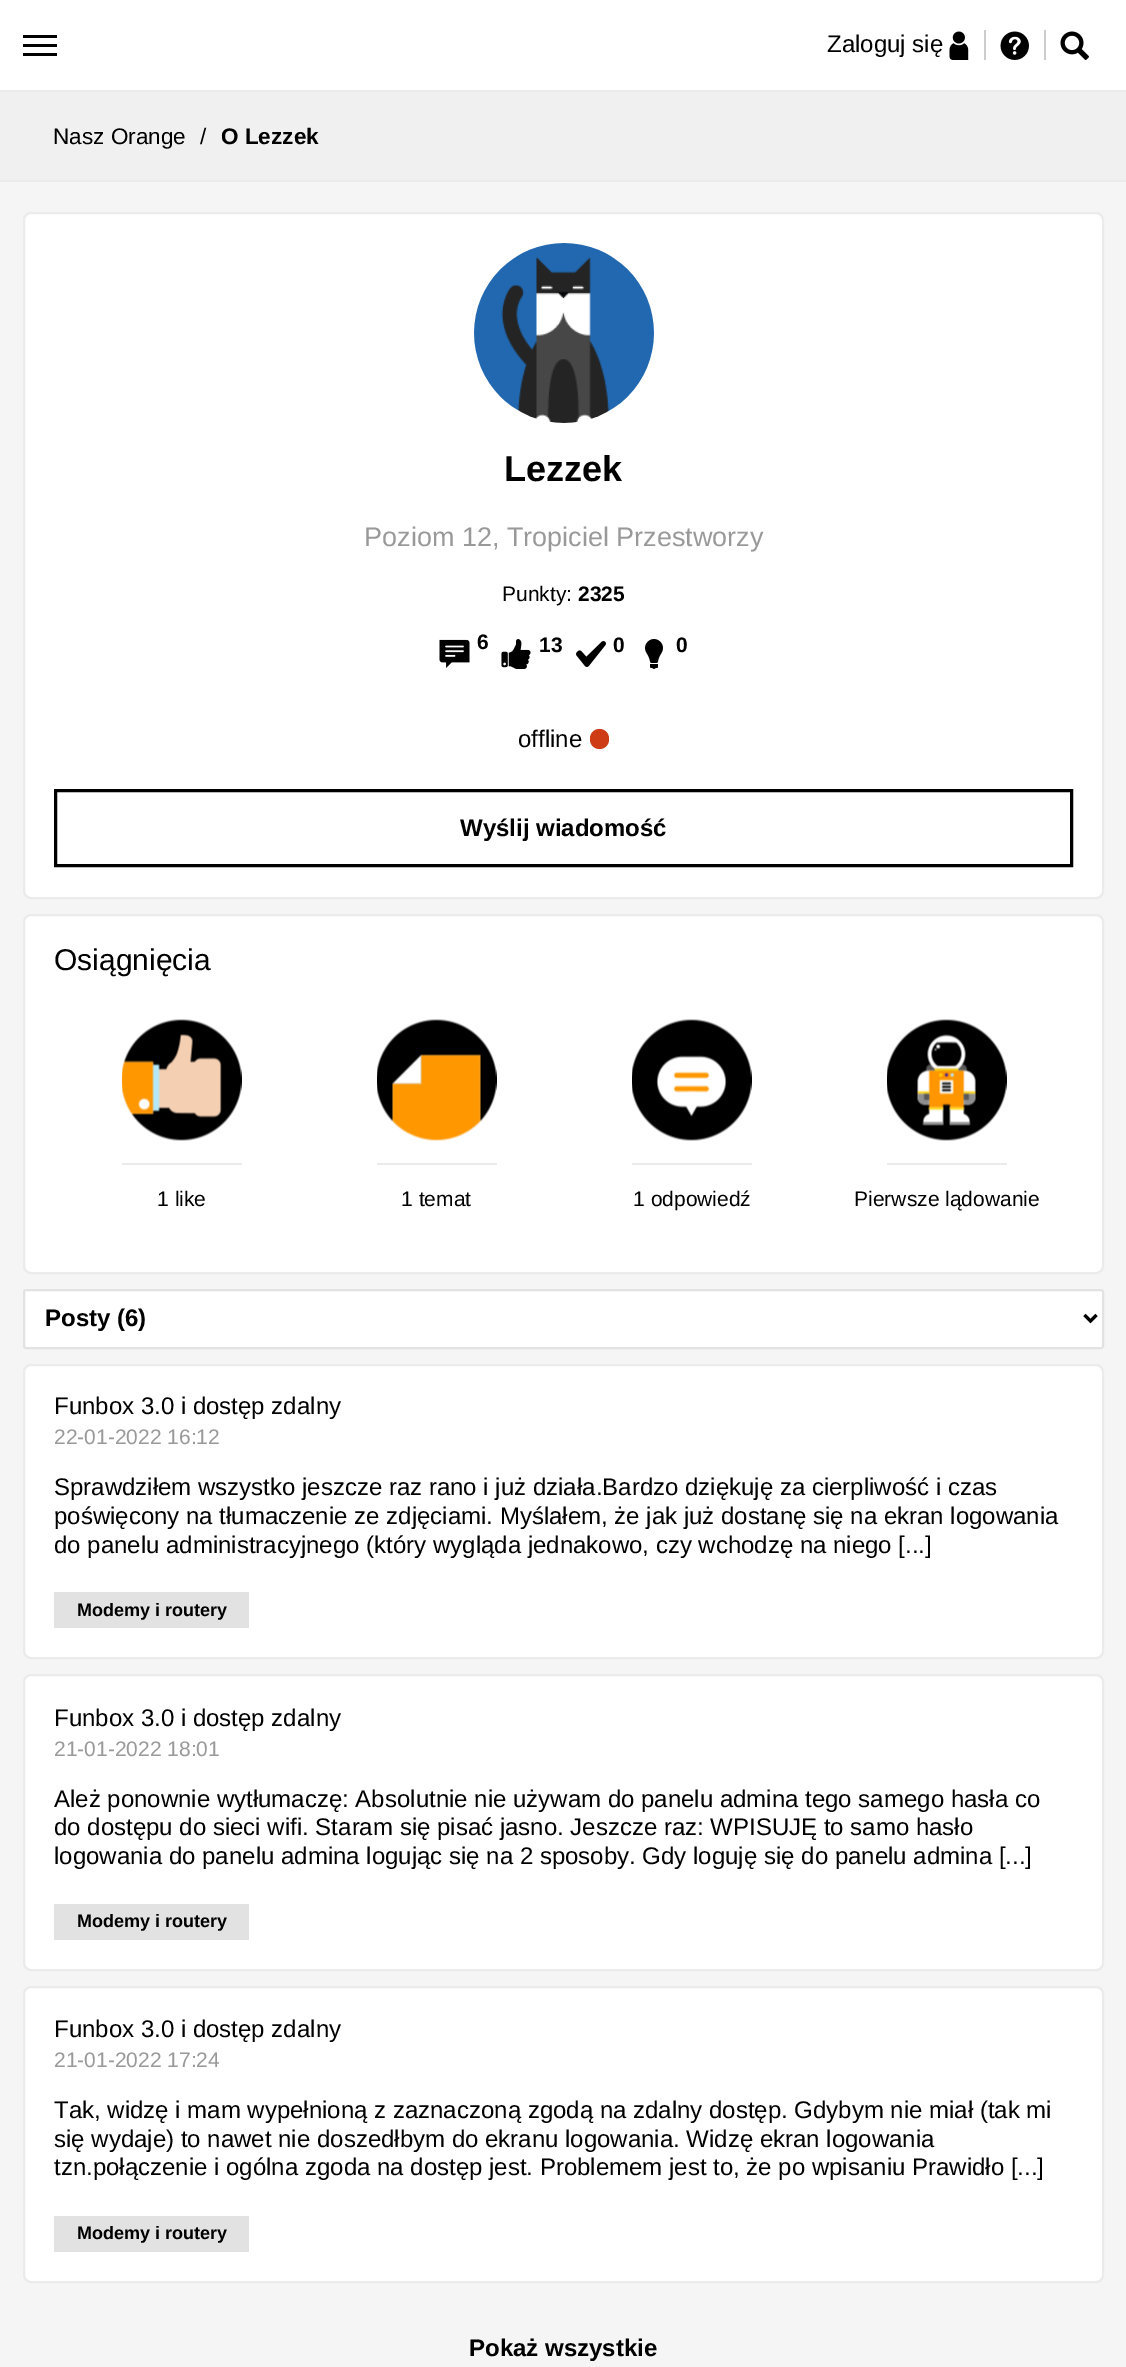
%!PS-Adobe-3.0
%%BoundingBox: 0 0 1126 2367
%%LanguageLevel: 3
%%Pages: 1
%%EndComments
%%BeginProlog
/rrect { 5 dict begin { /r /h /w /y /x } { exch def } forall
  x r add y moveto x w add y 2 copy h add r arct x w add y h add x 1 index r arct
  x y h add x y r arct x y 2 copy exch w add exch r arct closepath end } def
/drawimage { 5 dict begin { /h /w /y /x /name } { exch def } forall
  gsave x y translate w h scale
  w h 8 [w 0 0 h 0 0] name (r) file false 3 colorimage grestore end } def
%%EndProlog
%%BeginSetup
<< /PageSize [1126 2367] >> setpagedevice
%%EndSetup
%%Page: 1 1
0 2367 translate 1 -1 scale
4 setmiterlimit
0.961 setgray
0 0 1126 2367 rectfill
1 setgray
0 0 1126 90 rectfill
0 setgray
23 44 34 3 rectfill
23 35 34 3 rectfill
23 53 34 3 rectfill
0.8 setgray
984 30 2 30 rectfill
(images/1.raw) 949 31 20 29 drawimage
1044 30 2 30 rectfill
(images/2.raw) 1000 31 29 29 drawimage
(images/3.raw) 1060 31 29 29 drawimage
0.941 setgray
0 92 1126 88 rectfill
0.922 setgray
0 90 1126 2 rectfill
0 180 1126 2 rectfill
1 setgray
24 213 1079 685 7 rrect gsave fill grestore
0.922 setgray
2 setlinewidth
stroke
(images/4.raw) 474 243 180 180 drawimage
(images/5.raw) 439 639 31 29 drawimage
(images/6.raw) 501 639 30 30 drawimage
(images/7.raw) 576 641 30 26 drawimage
(images/8.raw) 645 639 18 30 drawimage
0.804 0.235 0.078 setrgbcolor
590 729 19 20 9.5 rrect fill
0 setgray
3 setlinewidth
55.5 790.5 1016 75 rectstroke
1 setgray
24 915 1079 358 7 rrect gsave fill grestore
0.922 setgray
2 setlinewidth
stroke
122 1163 120 2 rectfill
(images/9.raw) 122 1019 120 122 drawimage
377 1163 120 2 rectfill
(images/10.raw) 377 1019 120 122 drawimage
632 1163 120 2 rectfill
(images/11.raw) 632 1019 120 122 drawimage
887 1163 120 2 rectfill
(images/12.raw) 887 1019 120 122 drawimage
1 setgray
24 1290 1079 58 2 rrect gsave fill grestore
0.886 setgray
stroke
0 setgray
3 setlinewidth
newpath 1084.5 1315 moveto 1090.5 1321 lineto 1096.5 1315 lineto stroke
1 setgray
24 1365 1079 293 7 rrect gsave fill grestore
0.922 setgray
2 setlinewidth
stroke
0.886 setgray
54 1592 195 36 rectfill
1 setgray
24 1675 1079 295 7 rrect gsave fill grestore
0.922 setgray
stroke
0.886 setgray
54 1904 195 36 rectfill
1 setgray
24 1987 1079 295 7 rrect gsave fill grestore
0.922 setgray
stroke
0.886 setgray
54 2216 195 36 rectfill
/LiberationSans-Regular [24 0 0 -24 0 0] selectfont
0 setgray
827 52 moveto (Zaloguj się) show
/LiberationSans-Regular [22.5 0 0 -22.5 0 0] selectfont
53 144 moveto (Nasz Orange) show
200 144 moveto (/) show
/LiberationSans-Bold [22.5 0 0 -22.5 0 0] selectfont
221 144 moveto (O Lezzek) show
/LiberationSans-Bold [36 0 0 -36 0 0] selectfont
504 481 moveto (Lezzek) show
/LiberationSans-Regular [27 0 0 -27 0 0] selectfont
0.6 setgray
364 546 moveto (Poziom 12, Tropiciel Przestworzy) show
/LiberationSans-Regular [21 0 0 -21 0 0] selectfont
0 setgray
502 601 moveto (Punkty:) show
/LiberationSans-Bold [21 0 0 -21 0 0] selectfont
578 601 moveto (2325) show
477 649 moveto (6) show
539 652 moveto (13) show
613 652 moveto (0) show
676 652 moveto (0) show
/LiberationSans-Regular [24 0 0 -24 0 0] selectfont
518 747 moveto (offline) show
/LiberationSans-Bold [24 0 0 -24 0 0] selectfont
460 836 moveto (Wyślij wiadomość) show
/LiberationSans-Regular [30 0 0 -30 0 0] selectfont
54 970 moveto (Osiągnięcia) show
/LiberationSans-Regular [21 0 0 -21 0 0] selectfont
157 1206 moveto (1 like) show
401 1206 moveto (1 temat) show
633 1206 moveto (1 odpowiedź) show
854 1206 moveto (Pierwsze lądowanie) show
/LiberationSans-Bold [24 0 0 -24 0 0] selectfont
45 1326 moveto (Posty \(6\)) show
/LiberationSans-Regular [24 0 0 -24 0 0] selectfont
54 1414 moveto (Funbox 3.0 i dostęp zdalny) show
/LiberationSans-Regular [21 0 0 -21 0 0] selectfont
0.6 setgray
54 1444 moveto (22-01-2022 16:12) show
/LiberationSans-Regular [24 0 0 -24 0 0] selectfont
0 setgray
54 1495 moveto (Sprawdziłem wszystko jeszcze raz rano i już działa.Bardzo dziękuję za cierpliwość i czas) show
54 1524 moveto (poświęcony na tłumaczenie ze zdjęciami. Myślałem, że jak już dostanę się na ekran logowania) show
54 1553 moveto (do panelu administracyjnego \(który wygląda jednakowo, czy wchodzę na niego [...]) show
/LiberationSans-Bold [18 0 0 -18 0 0] selectfont
77 1616 moveto (Modemy i routery) show
/LiberationSans-Regular [24 0 0 -24 0 0] selectfont
54 1726 moveto (Funbox 3.0 i dostęp zdalny) show
/LiberationSans-Regular [21 0 0 -21 0 0] selectfont
0.6 setgray
54 1756 moveto (21-01-2022 18:01) show
/LiberationSans-Regular [24 0 0 -24 0 0] selectfont
0 setgray
54 1807 moveto (Ależ ponownie wytłumaczę: Absolutnie nie używam do panelu admina tego samego hasła co) show
54 1835 moveto (do dostępu do sieci wifi. Staram się pisać jasno. Jeszcze raz: WPISUJĘ to samo hasło) show
54 1864 moveto (logowania do panelu admina logując się na 2 sposoby. Gdy loguję się do panelu admina [...]) show
/LiberationSans-Bold [18 0 0 -18 0 0] selectfont
77 1927 moveto (Modemy i routery) show
/LiberationSans-Regular [24 0 0 -24 0 0] selectfont
54 2037 moveto (Funbox 3.0 i dostęp zdalny) show
/LiberationSans-Regular [21 0 0 -21 0 0] selectfont
0.6 setgray
54 2067 moveto (21-01-2022 17:24) show
/LiberationSans-Regular [24 0 0 -24 0 0] selectfont
0 setgray
54 2118 moveto (Tak, widzę i mam wypełnioną z zaznaczoną zgodą na zdalny dostęp. Gdybym nie miał \(tak mi) show
54 2147 moveto (się wydaje\) to nawet nie doszedłbym do ekranu logowania. Widzę ekran logowania) show
54 2175 moveto (tzn.połączenie i ogólna zgoda na dostęp jest. Problemem jest to, że po wpisaniu Prawidło [...]) show
/LiberationSans-Bold [18 0 0 -18 0 0] selectfont
77 2239 moveto (Modemy i routery) show
/LiberationSans-Bold [24 0 0 -24 0 0] selectfont
469 2356 moveto (Pokaż wszystkie) show
showpage
%%EOF
